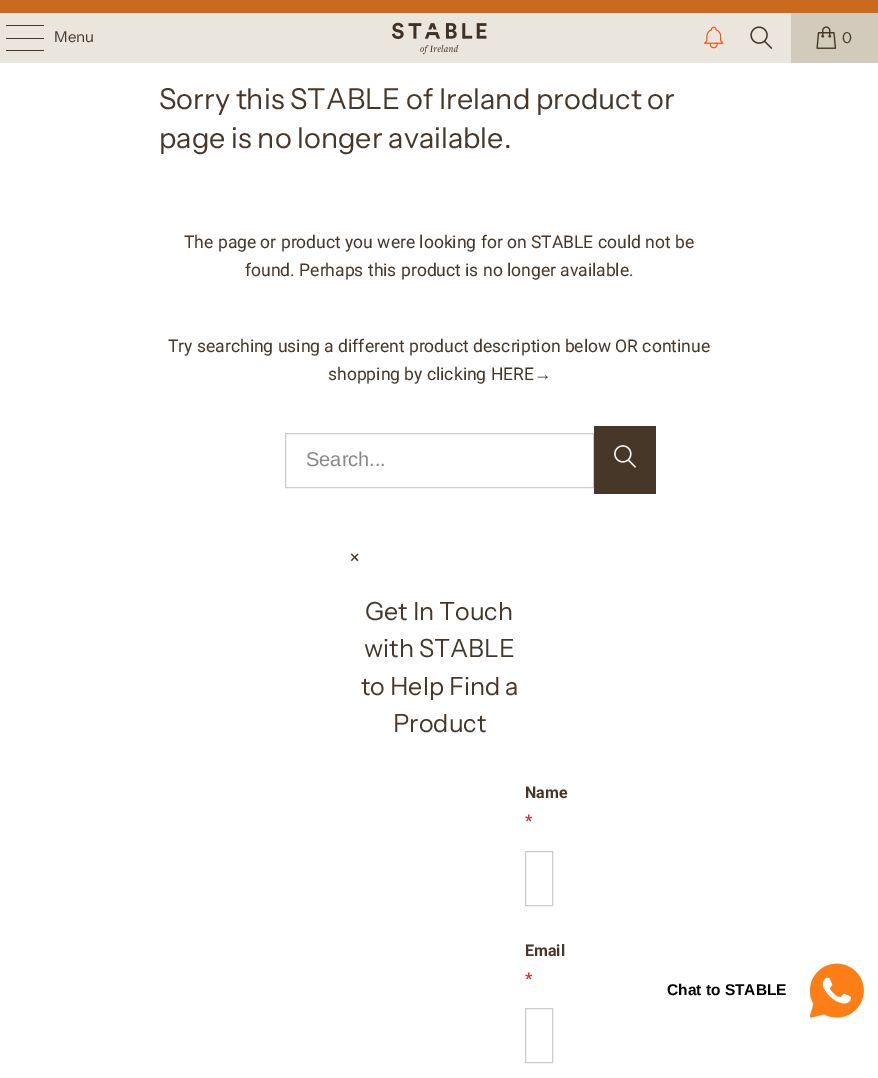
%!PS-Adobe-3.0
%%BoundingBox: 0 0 878 1078
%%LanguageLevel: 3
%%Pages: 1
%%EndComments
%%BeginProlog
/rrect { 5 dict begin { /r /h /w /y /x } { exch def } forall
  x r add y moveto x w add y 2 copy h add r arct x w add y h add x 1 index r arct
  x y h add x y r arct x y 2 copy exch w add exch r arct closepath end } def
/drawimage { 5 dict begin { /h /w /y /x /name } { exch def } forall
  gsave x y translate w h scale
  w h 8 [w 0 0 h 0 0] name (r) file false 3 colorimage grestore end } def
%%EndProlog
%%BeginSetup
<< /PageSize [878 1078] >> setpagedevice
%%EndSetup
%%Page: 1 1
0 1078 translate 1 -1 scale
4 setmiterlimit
1 setgray
0 0 878 1078 rectfill
0.788 0.416 0.114 setrgbcolor
0 0 878 13 rectfill
0.922 0.902 0.867 setrgbcolor
0 13 791 50 rectfill
0.278 0.216 0.161 setrgbcolor
6 25 38 1 0.5 rrect fill
6 38 38 1 0.5 rrect fill
6 50 38 1 0.5 rrect fill
(images/1.raw) 392 22 95 33 drawimage
(images/2.raw) 704 26 20 23 drawimage
(images/3.raw) 750 26 23 23 drawimage
0.824 0.792 0.729 setrgbcolor
791 13 87 50 rectfill
(images/4.raw) 816 26 21 23 drawimage
0.8 setgray
285.5 433.5 308 54 rectstroke
0.278 0.216 0.161 setrgbcolor
594 426 62 68 rectfill
(images/5.raw) 614 445 22 23 drawimage
0.8 setgray
525.5 851.5 27 54 rectstroke
525.5 1008.5 27 54 rectstroke
(images/6.raw) 809 963 55 55 drawimage
/InstrumentSans-Regular [15 0 0 -15 0 0] selectfont
0.278 0.216 0.161 setrgbcolor
54 42 moveto (Menu) show
842 43 moveto (0) show
/InstrumentSans-Regular [28.75 0 0 -28.75 0 0] selectfont
159 109 moveto (Sorry this STABLE of Ireland product or) show
159 148 moveto (page is no longer available.) show
/Roboto-Regular [17.5 0 0 -17.5 0 0] selectfont
184 248 moveto (The page or product you were looking for on STABLE could not be) show
245 276 moveto (found. Perhaps this product is no longer available.) show
168 352 moveto (Try searching using a different product description below OR continue) show
328 380 moveto (shopping by clicking HERE) show
/LiberationSans-Regular [17.5 0 0 -17.5 0 0] selectfont
534 380 moveto (→) show
/LiberationSans-Regular [20 0 0 -20 0 0] selectfont
0.533 setgray
306 466 moveto (Search...) show
/Roboto-Regular [17.5 0 0 -17.5 0 0] selectfont
0.278 0.216 0.161 setrgbcolor
350 563 moveto (×) show
/InstrumentSans-Regular [25 0 0 -25 0 0] selectfont
365 620 moveto (Get In Touch) show
364 657 moveto (with STABLE) show
361 695 moveto (to Help Find a) show
393 732 moveto (Product) show
/Roboto-Bold [16 0 0 -16 0 0] selectfont
525 798 moveto (Name) show
0.8 0.2 0.2 setrgbcolor
525 826 moveto (*) show
0.278 0.216 0.161 setrgbcolor
525 956 moveto (Email) show
0.8 0.2 0.2 setrgbcolor
525 984 moveto (*) show
/LiberationSans-Bold [15.5 0 0 -15.5 0 0] selectfont
0 setgray
667 995 moveto (Chat to STABLE) show
showpage
%%EOF
